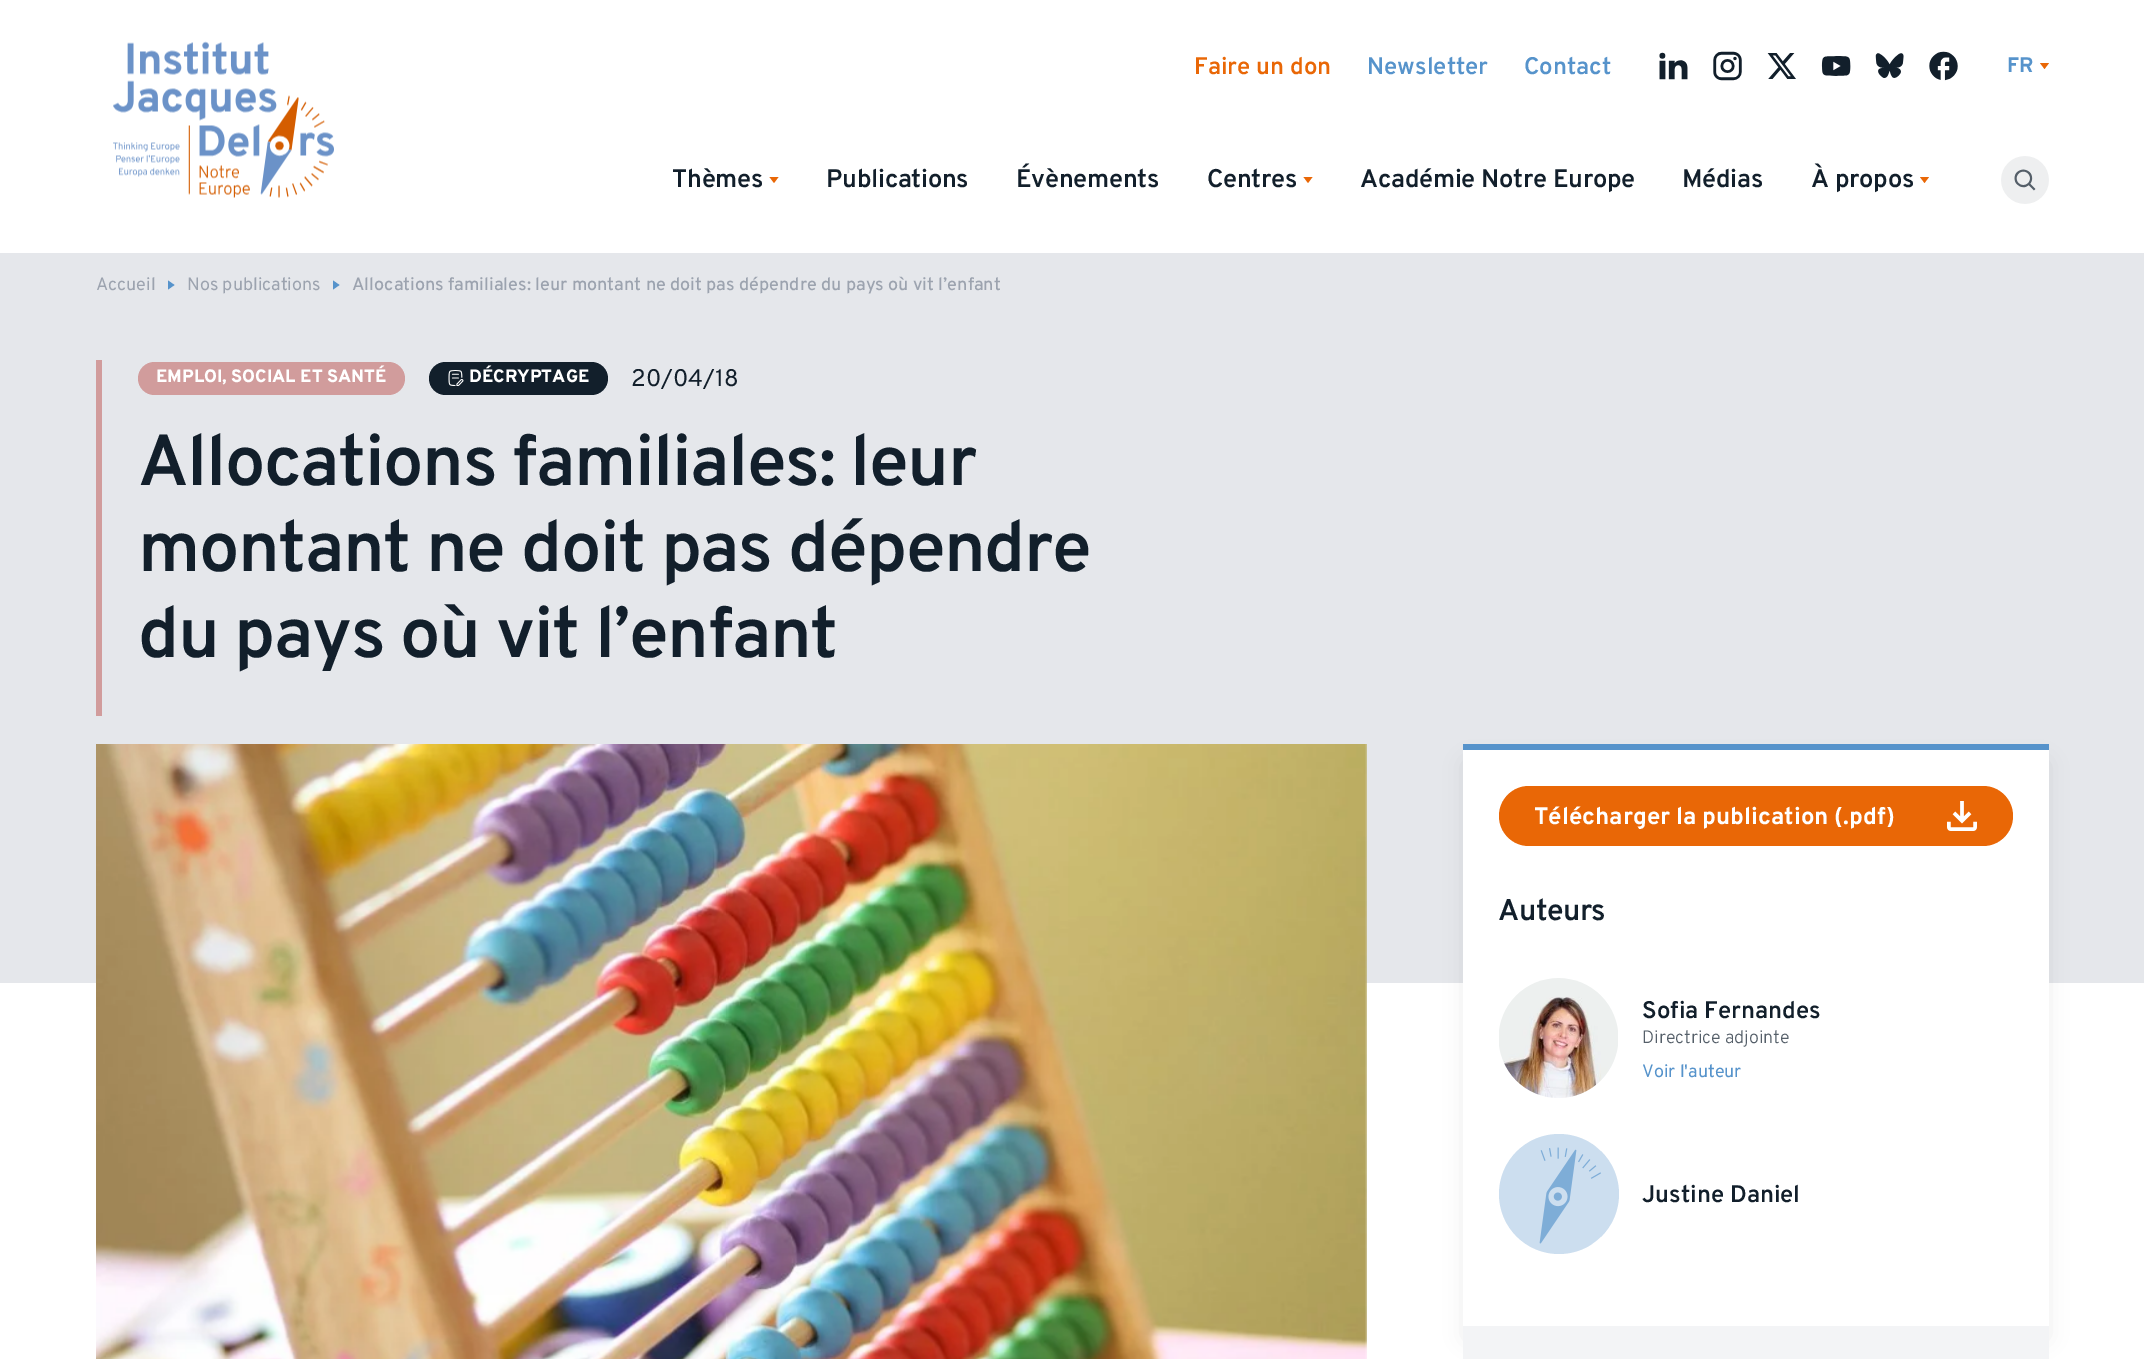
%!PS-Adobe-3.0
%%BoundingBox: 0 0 2144 1359
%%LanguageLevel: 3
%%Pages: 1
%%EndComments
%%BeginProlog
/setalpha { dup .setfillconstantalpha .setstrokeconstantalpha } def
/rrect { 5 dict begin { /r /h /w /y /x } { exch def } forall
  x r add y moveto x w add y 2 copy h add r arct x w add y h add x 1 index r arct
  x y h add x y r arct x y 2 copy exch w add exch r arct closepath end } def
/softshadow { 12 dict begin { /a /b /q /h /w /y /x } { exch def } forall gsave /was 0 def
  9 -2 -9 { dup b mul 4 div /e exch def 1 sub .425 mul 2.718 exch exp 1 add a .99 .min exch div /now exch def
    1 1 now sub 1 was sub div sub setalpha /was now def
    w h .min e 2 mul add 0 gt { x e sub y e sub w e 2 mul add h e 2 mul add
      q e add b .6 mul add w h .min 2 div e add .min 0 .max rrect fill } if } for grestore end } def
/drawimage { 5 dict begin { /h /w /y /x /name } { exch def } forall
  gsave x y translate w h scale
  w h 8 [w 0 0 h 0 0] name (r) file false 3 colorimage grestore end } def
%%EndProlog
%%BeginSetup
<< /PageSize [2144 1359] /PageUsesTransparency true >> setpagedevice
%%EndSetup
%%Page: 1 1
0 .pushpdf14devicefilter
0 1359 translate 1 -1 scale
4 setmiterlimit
1 setgray
0 0 2144 1359 rectfill
(images/1.raw) 113 41 221 157 drawimage
(images/2.raw) 1659 52 29 28 drawimage
(images/3.raw) 1713 51 29 30 drawimage
(images/4.raw) 1767 53 29 26 drawimage
(images/5.raw) 1821 56 30 20 drawimage
(images/6.raw) 1875 53 29 25 drawimage
(images/7.raw) 1929 51 29 30 drawimage
0.914 0.404 0.024 setrgbcolor
newpath 2040 63 moveto 2049 63 lineto 2044.5 69 lineto closepath fill
newpath 769.5 177 moveto 778.5 177 lineto 774 183 lineto closepath fill
newpath 1303.5 177 moveto 1312.5 177 lineto 1308 183 lineto closepath fill
newpath 1920 177 moveto 1929 177 lineto 1924.5 183 lineto closepath fill
(images/8.raw) 2001 156 48 48 drawimage
0.898 0.906 0.922 setrgbcolor
0 253 2144 730 rectfill
0.337 0.576 0.796 setrgbcolor
newpath 174.5 285 moveto 168 280.5 lineto 168 289.5 lineto closepath fill
newpath 339.5 285 moveto 333 280.5 lineto 333 289.5 lineto closepath fill
0.82 0.612 0.612 setrgbcolor
96 360 6 356 rectfill
138 362 267 33 16.5 rrect fill
0.071 0.122 0.169 setrgbcolor
429 362 179 33 16.5 rrect fill
(images/9.raw) 448 370 16 16 drawimage
(images/10.raw) 96 744 1271 615 drawimage
0 setgray
1467 764 578 573 0 11 0.1 softshadow
1 setgray
1463 750 586 576 rectfill
0.337 0.576 0.796 setrgbcolor
1463 744 586 6 rectfill
0.914 0.404 0.024 setrgbcolor
1499 786 514 60 30 rrect fill
(images/11.raw) 1947 801 30 30 drawimage
(images/12.raw) 1499 978 119 120 drawimage
0.8 0.871 0.937 setrgbcolor
newpath 1559 1194 60 0 360 arc closepath fill
(images/13.raw) 1539 1147 62 97 drawimage
0.953 0.957 0.965 setrgbcolor
1463 1326 586 33 rectfill
/Overpass-SemiBold [24 0 0 -24 0 0] selectfont
0.914 0.404 0.024 setrgbcolor
1194 74 moveto (Faire un don) show
0.337 0.576 0.796 setrgbcolor
1367 74 moveto (Newsletter) show
1524 74 moveto (Contact) show
/Overpass-Bold [21 0 0 -21 0 0] selectfont
2007 72 moveto (FR) show
/Overpass-SemiBold [25.5 0 0 -25.5 0 0] selectfont
0.071 0.122 0.169 setrgbcolor
672 187 moveto -0.25 0 (Thèmes) ashow
826 187 moveto -0.25 0 (Publications) ashow
1016 187 moveto -0.25 0 (Évènements) ashow
1207 187 moveto -0.25 0 (Centres) ashow
1360 187 moveto -0.25 0 (Académie Notre Europe) ashow
1682 187 moveto -0.25 0 (Médias) ashow
1811 187 moveto -0.25 0 (À propos) ashow
/Overpass-Regular [18 0 0 -18 0 0] selectfont
0.612 0.639 0.686 setrgbcolor
96 290 moveto (Accueil) show
187 290 moveto (Nos publications) show
/Overpass-Medium [18 0 0 -18 0 0] selectfont
352 290 moveto (Allocations familiales: leur montant ne doit pas dépendre du pays où vit l’enfant) show
/Overpass-ExtraBold [18 0 0 -18 0 0] selectfont
1 setgray
156 382 moveto (EMPLOI, SOCIAL ET SANTÉ) show
469 382 moveto (DÉCRYPTAGE) show
/Overpass-Regular [24 0 0 -24 0 0] selectfont
0.071 0.122 0.169 setrgbcolor
631 386 moveto (20/04/18) show
/Overpass-SemiBold [72 0 0 -72 0 0] selectfont
138 485 moveto -1.45 0 (Allocations familiales: leur) ashow
138 571 moveto -1.45 0 (montant ne doit pas dépendre) ashow
138 657 moveto -1.45 0 (du pays où vit l’enfant) ashow
/Overpass-Bold [24 0 0 -24 0 0] selectfont
1 setgray
1534 824 moveto (Télécharger la publication \(.pdf\)) show
/Overpass-SemiBold [30 0 0 -30 0 0] selectfont
0.071 0.122 0.169 setrgbcolor
1498 920 moveto -0.5 0 (Auteurs) ashow
/Overpass-SemiBold [24 0 0 -24 0 0] selectfont
1642 1018 moveto (Sofia Fernandes) show
/Overpass-Light [18 0 0 -18 0 0] selectfont
0.333 0.373 0.412 setrgbcolor
1642 1043 moveto (Directrice adjointe) show
/Overpass-Regular [18 0 0 -18 0 0] selectfont
0.337 0.576 0.796 setrgbcolor
1642 1077 moveto (Voir l'auteur) show
/Overpass-SemiBold [24 0 0 -24 0 0] selectfont
0.071 0.122 0.169 setrgbcolor
1642 1202 moveto (Justine Daniel) show
.poppdf14devicefilter showpage
%%EOF
